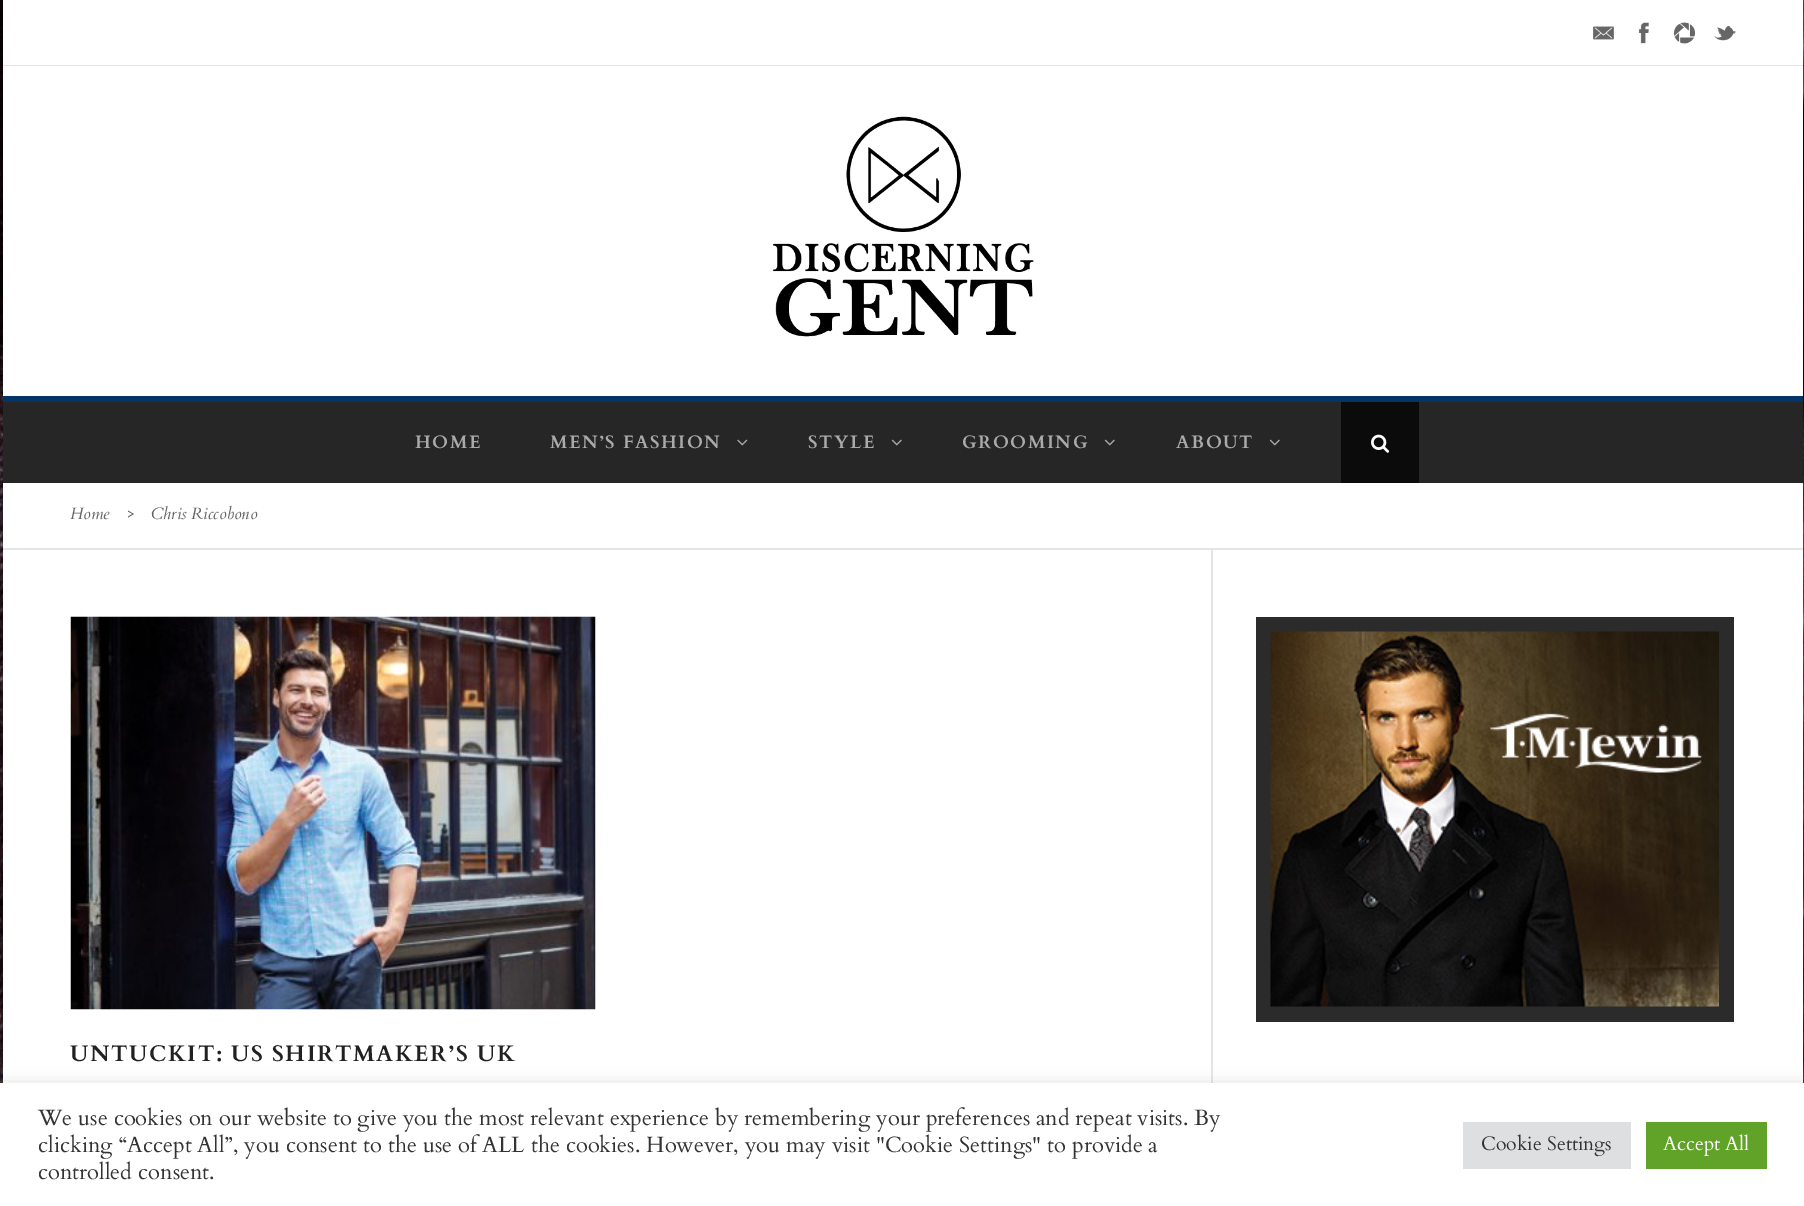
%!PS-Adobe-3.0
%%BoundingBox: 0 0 1804 1206
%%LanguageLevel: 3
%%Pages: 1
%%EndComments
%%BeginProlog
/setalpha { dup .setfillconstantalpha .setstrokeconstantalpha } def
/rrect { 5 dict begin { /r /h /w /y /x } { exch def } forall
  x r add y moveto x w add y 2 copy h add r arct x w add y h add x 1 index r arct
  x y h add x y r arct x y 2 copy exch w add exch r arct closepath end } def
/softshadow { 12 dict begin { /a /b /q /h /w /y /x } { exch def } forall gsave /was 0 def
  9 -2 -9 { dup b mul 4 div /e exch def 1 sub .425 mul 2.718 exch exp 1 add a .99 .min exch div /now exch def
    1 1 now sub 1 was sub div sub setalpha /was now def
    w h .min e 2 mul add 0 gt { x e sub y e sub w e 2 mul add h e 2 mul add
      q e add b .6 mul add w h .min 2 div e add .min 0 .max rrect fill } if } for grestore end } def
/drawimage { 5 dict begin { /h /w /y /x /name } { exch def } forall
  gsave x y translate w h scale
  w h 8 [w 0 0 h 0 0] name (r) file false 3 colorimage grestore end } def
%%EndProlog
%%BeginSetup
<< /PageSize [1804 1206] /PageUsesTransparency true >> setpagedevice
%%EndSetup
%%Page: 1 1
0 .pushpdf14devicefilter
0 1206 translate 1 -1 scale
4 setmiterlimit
1 setgray
0 0 1804 1206 rectfill
(images/1.raw) 0 0 1804 1083 drawimage
0 setgray
3 2 1800 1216 0 4 0.15 softshadow
1 setgray
3 0 1800 1083 rectfill
0.894 setgray
3 65 1800 1 rectfill
(images/2.raw) 1593 26 21 14 drawimage
(images/3.raw) 1638 22 11 22 drawimage
(images/4.raw) 1674 22 21 22 drawimage
(images/5.raw) 1714 25 22 16 drawimage
(images/6.raw) 772 116 262 221 drawimage
0.149 setgray
3 402 1800 81 rectfill
0.02 0.208 0.4 setrgbcolor
3 396 1800 6 rectfill
(images/7.raw) 737 439 11 7 drawimage
(images/8.raw) 891 439 11 7 drawimage
(images/8.raw) 1104 439 11 7 drawimage
(images/8.raw) 1269 439 11 7 drawimage
0.043 setgray
1341 402 78 81 rectfill
(images/9.raw) 1371 434 19 19 drawimage
0.898 setgray
3 548 1800 2 rectfill
(images/10.raw) 70 616 526 394 drawimage
1211 549 2 534 rectfill
0.169 setgray
1256 617 478 405 rectfill
(images/11.raw) 1270 631 449 376 drawimage
0.675 0.671 0.671 setrgbcolor
0 1082 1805 123 0 7.5 0.3 softshadow
1 setgray
0 1083 1804 123 rectfill
0.871 0.875 0.878 setrgbcolor
1463 1122 168 47 rectfill
0.38 0.635 0.161 setrgbcolor
1646 1122 121 47 rectfill
/Cardo-Bold [18 0 0 -18 0 0] selectfont
0.667 setgray
415 448 moveto 1.5 0 (HOME) ashow
550 448 moveto 1.5 0 (MEN’S FASHION) ashow
808 448 moveto 1.5 0 (STYLE) ashow
962 448 moveto 1.5 0 (GROOMING) ashow
1176 448 moveto 1.5 0 (ABOUT) ashow
/Cardo-Italic [16.5 0 0 -16.5 0 0] selectfont
0.388 setgray
70 519 moveto (Home) show
126 519 moveto (>) show
151 519 moveto (Chris Riccobono) show
/Cardo-Bold [22.5 0 0 -22.5 0 0] selectfont
0.129 setgray
70 1061 moveto 1.5 0 (UNTUCKIT: US SHIRTMAKER’S UK) ashow
/Cardo-Regular [22 0 0 -22 0 0] selectfont
0.2 setgray
38 1125 moveto (We use cookies on our website to give you the most relevant experience by remembering your preferences and repeat visits. By) show
38 1152 moveto (clicking “Accept All”, you consent to the use of ALL the cookies. However, you may visit "Cookie Settings" to provide a) show
38 1179 moveto (controlled consent.) show
/Cardo-Regular [19.5 0 0 -19.5 0 0] selectfont
1481 1150 moveto (Cookie Settings) show
1 setgray
1663 1150 moveto (Accept All) show
.poppdf14devicefilter showpage
%%EOF
